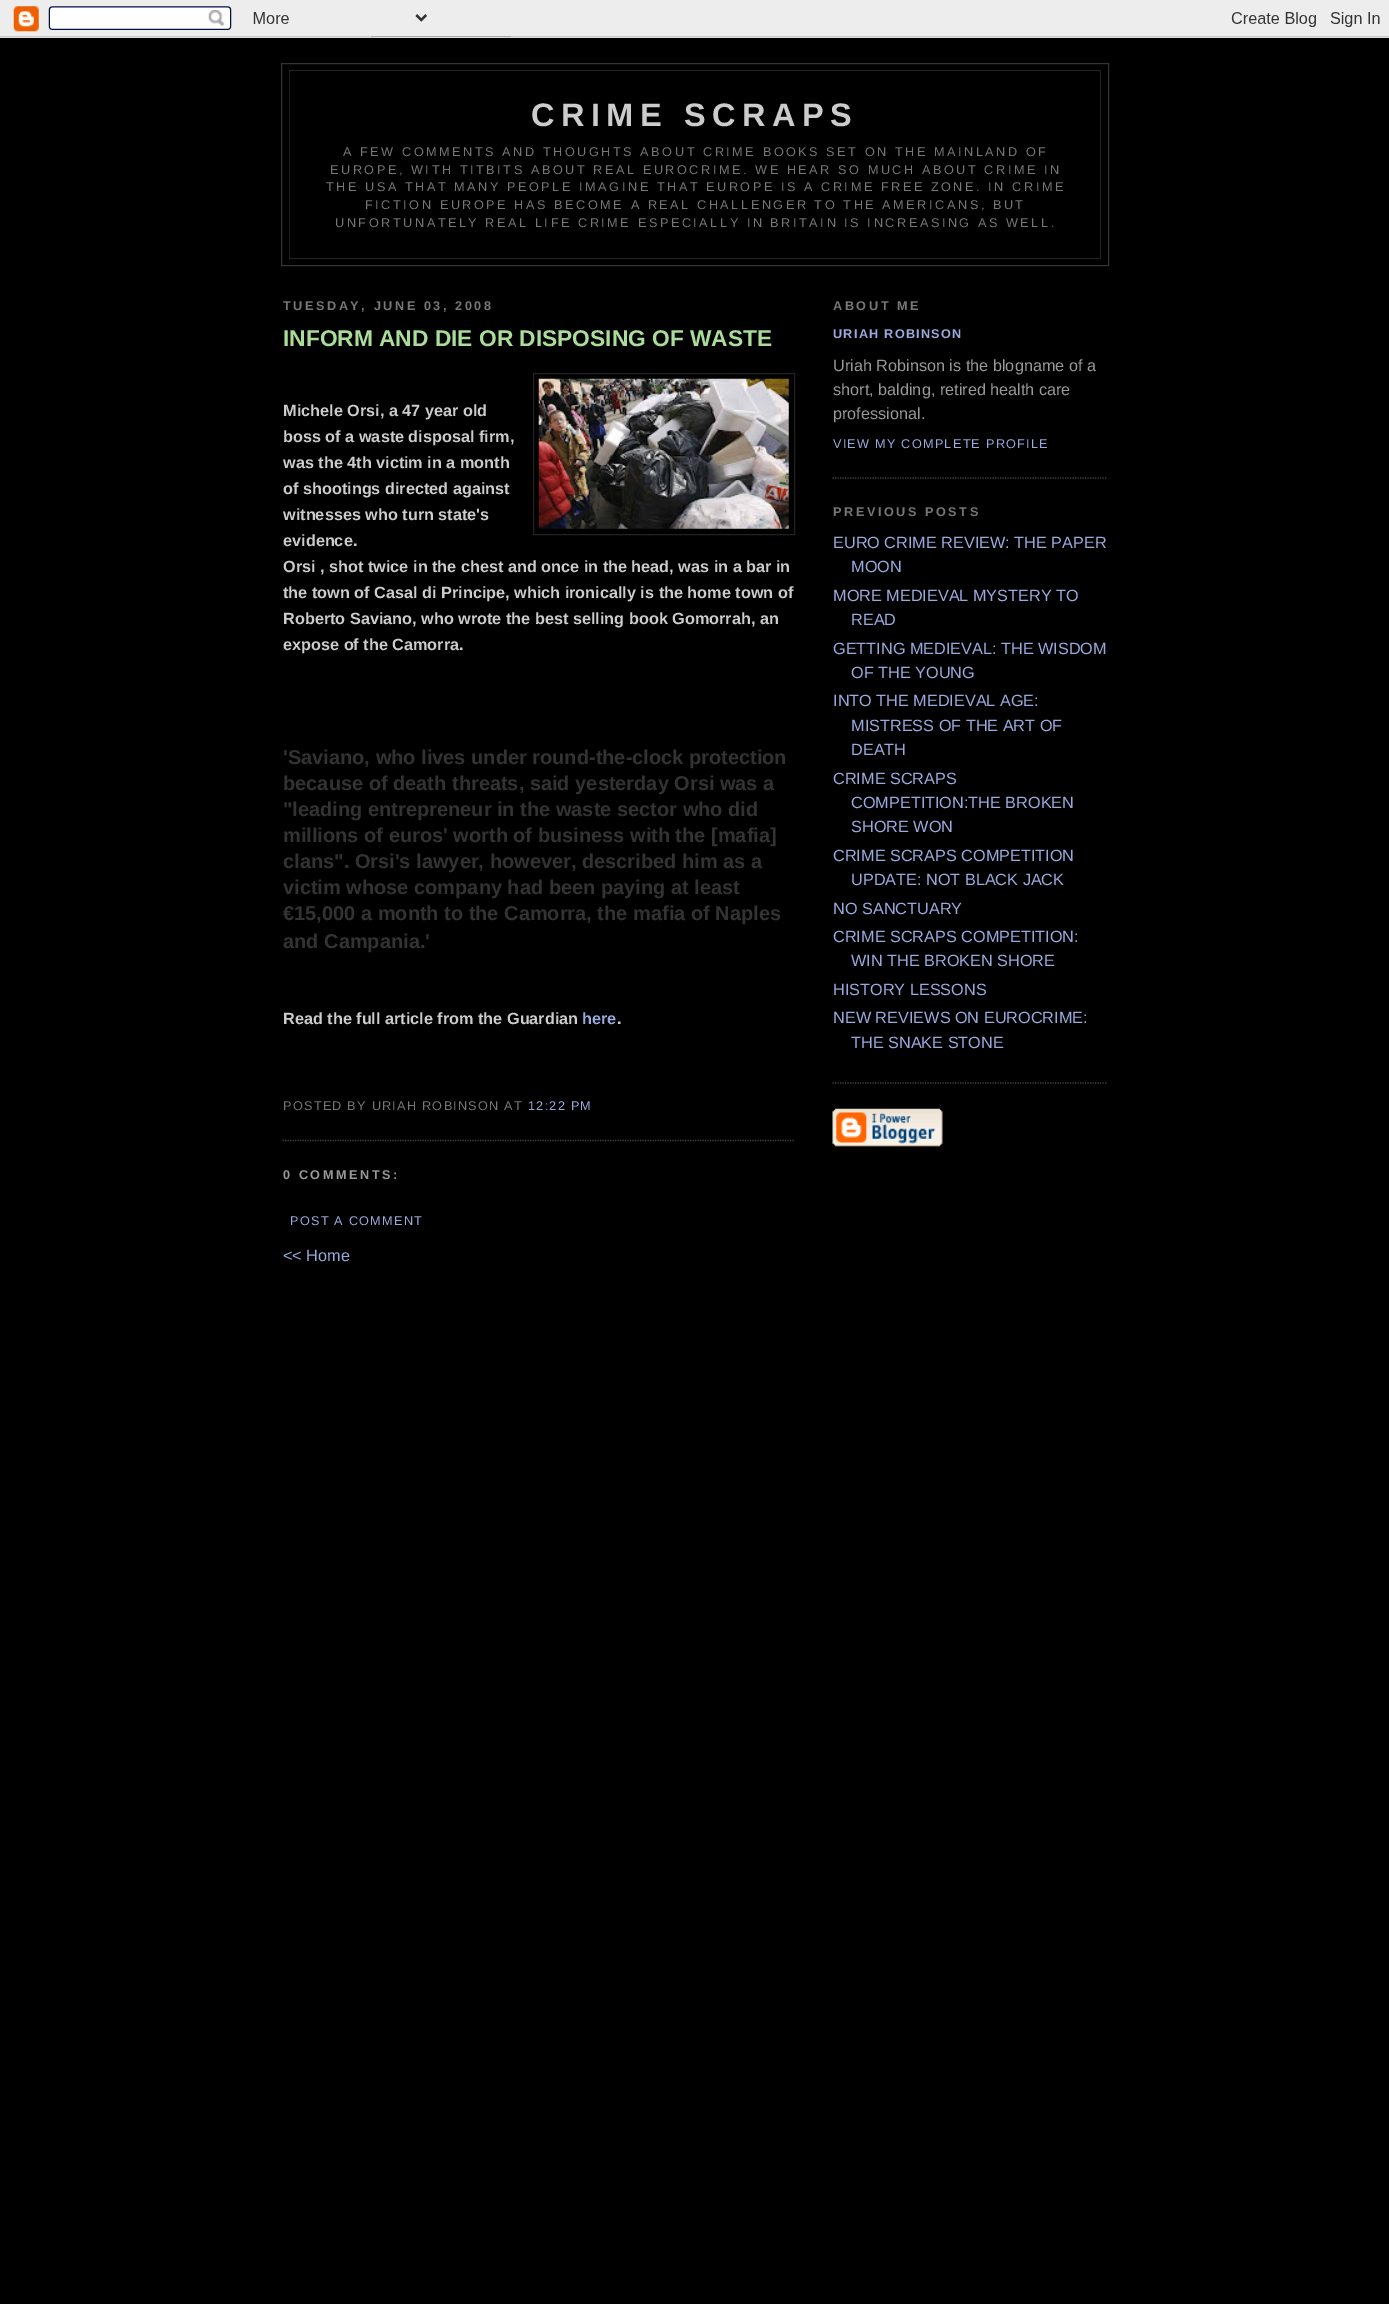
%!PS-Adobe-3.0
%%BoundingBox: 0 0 1389 2304
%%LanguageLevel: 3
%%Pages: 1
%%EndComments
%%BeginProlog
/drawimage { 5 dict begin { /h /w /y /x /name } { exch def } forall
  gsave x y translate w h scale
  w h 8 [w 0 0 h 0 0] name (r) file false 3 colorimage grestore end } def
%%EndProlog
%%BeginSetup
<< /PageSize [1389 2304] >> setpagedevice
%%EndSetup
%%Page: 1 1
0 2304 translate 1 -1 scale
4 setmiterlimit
0 setgray
0 0 1389 2304 rectfill
(images/1.raw) 0 0 1389 38 drawimage
0.2 setgray
281.5 63.5 827 202 rectstroke
0.133 setgray
289 70 812 1 rectfill
1100 70 1 189 rectfill
289 70 1 74 rectfill
289 258 812 1 rectfill
289 144 1 115 rectfill
0.267 setgray
1.2 setlinewidth
[1.25 1.25] 0 setdash
newpath 282.5 1140.5 moveto 795 1140.5 lineto stroke
0.133 setgray
1 setlinewidth
[] 0 setdash
533.5 373.5 261 161 rectstroke
(images/2.raw) 538 378 251 151 drawimage
0.267 setgray
1.2 setlinewidth
[1.25 1.25] 0 setdash
newpath 832.5 478 moveto 1107.5 478 lineto stroke
newpath 832.5 1083 moveto 1107.5 1083 lineto stroke
(images/3.raw) 832 1108 111 39 drawimage
/LiberationSans-Bold [32.5 0 0 -32.5 0 0] selectfont
0.8 setgray
531 126 moveto 6.5 0 (CRIME SCRAPS) ashow
/LiberationSans-Regular [12.68 0 0 -12.68 0 0] selectfont
0.467 setgray
343 156 moveto 2.55 0 (A FEW COMMENTS AND THOUGHTS ABOUT CRIME BOOKS SET ON THE MAINLAND OF) ashow
330 174 moveto 2.55 0 (EUROPE, WITH TITBITS ABOUT REAL EUROCRIME. WE HEAR SO MUCH ABOUT CRIME IN) ashow
326 191 moveto 2.55 0 (THE USA THAT MANY PEOPLE IMAGINE THAT EUROPE IS A CRIME FREE ZONE. IN CRIME) ashow
365 209 moveto 2.55 0 (FICTION EUROPE HAS BECOME A REAL CHALLENGER TO THE AMERICANS, BUT) ashow
335 227 moveto 2.55 0 (UNFORTUNATELY REAL LIFE CRIME ESPECIALLY IN BRITAIN IS INCREASING AS WELL.) ashow
/LiberationSans-Bold [12.68 0 0 -12.68 0 0] selectfont
283 310 moveto 2.55 0 (TUESDAY, JUNE 03, 2008) ashow
/LiberationSans-Bold [22.75 0 0 -22.75 0 0] selectfont
0.667 0.867 0.6 setrgbcolor
283 346 moveto (INFORM AND DIE OR DISPOSING OF WASTE) show
/LiberationSans-Bold [16.25 0 0 -16.25 0 0] selectfont
0.8 setgray
283 416 moveto (Michele Orsi, a 47 year old) show
283 442 moveto (boss of a waste disposal firm,) show
283 468 moveto (was the 4th victim in a month) show
283 494 moveto (of shootings directed against) show
283 520 moveto (witnesses who turn state's) show
283 546 moveto (evidence.) show
283 572 moveto (Orsi , shot twice in the chest and once in the head, was in a bar in) show
283 598 moveto (the town of Casal di Principe, which ironically is the home town of) show
283 624 moveto (Roberto Saviano, who wrote the best selling book Gomorrah, an) show
283 650 moveto (expose of the Camorra.) show
/LiberationSans-Bold [20 0 0 -20 0 0] selectfont
0.2 setgray
283 764 moveto ('Saviano, who lives under round-the-clock protection) show
283 790 moveto (because of death threats, said yesterday Orsi was a) show
283 816 moveto ("leading entrepreneur in the waste sector who did) show
283 842 moveto (millions of euros' worth of business with the [mafia]) show
283 868 moveto (clans". Orsi's lawyer, however, described him as a) show
283 894 moveto (victim whose company had been paying at least) show
283 920 moveto (€15,000 a month to the Camorra, the mafia of Naples) show
283 948 moveto (and Campania.') show
/LiberationSans-Bold [16.25 0 0 -16.25 0 0] selectfont
0.8 setgray
283 1024 moveto (Read the full article from the Guardian) show
0.6 0.667 0.867 setrgbcolor
582 1024 moveto (here) show
0.8 setgray
617 1024 moveto (.) show
/LiberationSans-Regular [12.68 0 0 -12.68 0 0] selectfont
0.467 setgray
283 1110 moveto 1.25 0 (POSTED BY URIAH ROBINSON AT) ashow
0.6 0.667 0.867 setrgbcolor
528 1110 moveto 1.25 0 (12:22 PM) ashow
/LiberationSans-Bold [12.68 0 0 -12.68 0 0] selectfont
0.6 setgray
283 1179 moveto 2.55 0 (0 COMMENTS:) ashow
/LiberationSans-Regular [12.68 0 0 -12.68 0 0] selectfont
0.6 0.667 0.867 setrgbcolor
290 1225 moveto 1.25 0 (POST A COMMENT) ashow
/LiberationSans-Regular [16.25 0 0 -16.25 0 0] selectfont
283 1261 moveto (<< Home) show
/LiberationSans-Bold [12.68 0 0 -12.68 0 0] selectfont
0.467 setgray
833 310 moveto 2.55 0 (ABOUT ME) ashow
0.6 0.667 0.867 setrgbcolor
833 338 moveto 1.25 0 (URIAH ROBINSON) ashow
/LiberationSans-Regular [16.25 0 0 -16.25 0 0] selectfont
0.6 setgray
833 371 moveto (Uriah Robinson is the blogname of a) show
833 395 moveto (short, balding, retired health care) show
833 419 moveto (professional.) show
/LiberationSans-Regular [12.68 0 0 -12.68 0 0] selectfont
0.6 0.667 0.867 setrgbcolor
833 448 moveto 1.25 0 (VIEW MY COMPLETE PROFILE) ashow
/LiberationSans-Bold [12.68 0 0 -12.68 0 0] selectfont
0.467 setgray
833 516 moveto 2.55 0 (PREVIOUS POSTS) ashow
/LiberationSans-Regular [16.25 0 0 -16.25 0 0] selectfont
0.6 0.667 0.867 setrgbcolor
833 548 moveto (EURO CRIME REVIEW: THE PAPER) show
851 572 moveto (MOON) show
833 601 moveto (MORE MEDIEVAL MYSTERY TO) show
851 625 moveto (READ) show
833 654 moveto (GETTING MEDIEVAL: THE WISDOM) show
851 678 moveto (OF THE YOUNG) show
833 706 moveto (INTO THE MEDIEVAL AGE:) show
851 731 moveto (MISTRESS OF THE ART OF) show
851 755 moveto (DEATH) show
833 784 moveto (CRIME SCRAPS) show
851 808 moveto (COMPETITION:THE BROKEN) show
851 832 moveto (SHORE WON) show
833 861 moveto (CRIME SCRAPS COMPETITION) show
851 885 moveto (UPDATE: NOT BLACK JACK) show
833 914 moveto (NO SANCTUARY) show
833 942 moveto (CRIME SCRAPS COMPETITION:) show
851 966 moveto (WIN THE BROKEN SHORE) show
833 995 moveto (HISTORY LESSONS) show
833 1023 moveto (NEW REVIEWS ON EUROCRIME:) show
851 1048 moveto (THE SNAKE STONE) show
showpage
%%EOF
